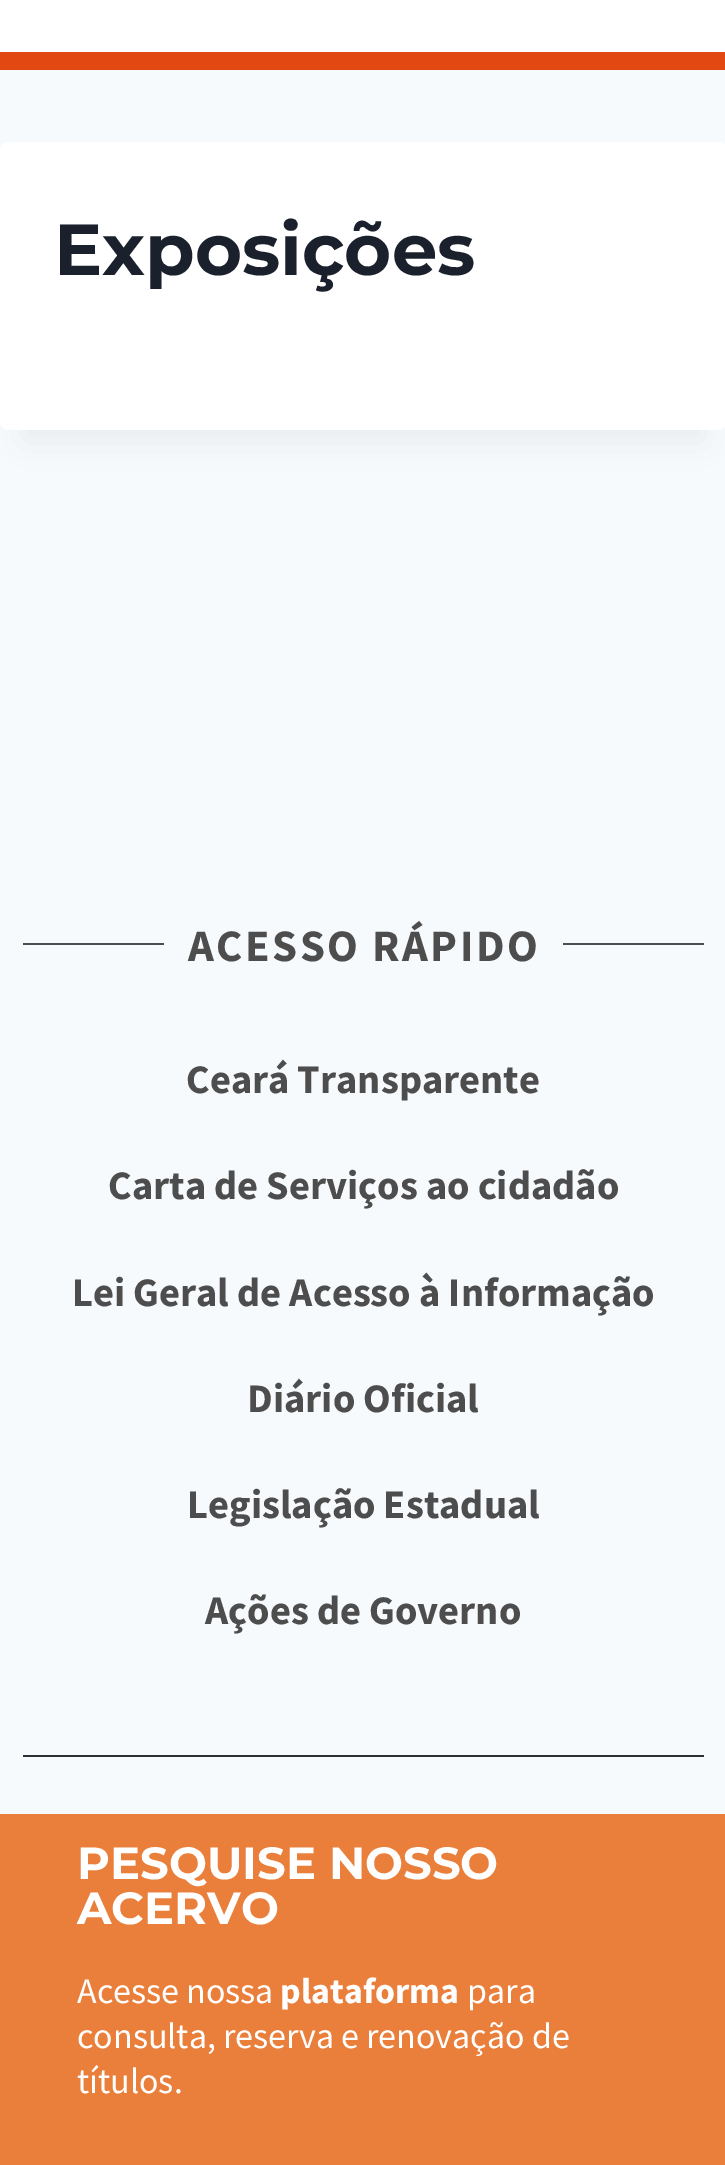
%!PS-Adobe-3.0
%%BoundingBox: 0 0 725 2165
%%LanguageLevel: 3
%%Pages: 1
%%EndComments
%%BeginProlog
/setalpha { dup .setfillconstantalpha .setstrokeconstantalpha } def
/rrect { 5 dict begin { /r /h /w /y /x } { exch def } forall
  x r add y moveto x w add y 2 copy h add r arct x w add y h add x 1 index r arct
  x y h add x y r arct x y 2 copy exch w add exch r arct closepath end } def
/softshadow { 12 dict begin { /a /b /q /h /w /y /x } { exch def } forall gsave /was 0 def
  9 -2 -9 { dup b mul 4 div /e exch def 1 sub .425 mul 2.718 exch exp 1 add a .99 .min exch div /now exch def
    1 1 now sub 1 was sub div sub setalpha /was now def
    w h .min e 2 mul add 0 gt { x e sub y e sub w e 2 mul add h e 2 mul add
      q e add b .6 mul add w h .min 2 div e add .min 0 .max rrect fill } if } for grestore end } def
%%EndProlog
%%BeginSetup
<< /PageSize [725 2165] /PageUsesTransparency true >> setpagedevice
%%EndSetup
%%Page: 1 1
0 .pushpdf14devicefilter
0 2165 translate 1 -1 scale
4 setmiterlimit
0.969 0.98 0.988 setrgbcolor
0 0 725 2165 rectfill
1 setgray
0 0 725 52 rectfill
0.886 0.286 0.071 setrgbcolor
0 52 725 18 rectfill
0 setgray
23 198 681 243 0 17 0.05 softshadow
1 setgray
0 142 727 288 9 rrect fill
0.302 setgray
23 943 141 2 rectfill
563 943 141 2 rectfill
0.184 setgray
23 1755 681 2 rectfill
0.914 0.498 0.227 setrgbcolor
0 1814 725 351 rectfill
/Montserrat-Thin [72 0 0 -72 0 0] selectfont
0.102 0.125 0.173 setrgbcolor
54 275 moveto (Exposições) show
/SourceSansPro-Bold [45 0 0 -45 0 0] selectfont
0.302 setgray
188 961 moveto 2.5 0 (ACESSO RÁPIDO) ashow
/SourceSansPro-Bold [40.5 0 0 -40.5 0 0] selectfont
186 1093 moveto (Ceará Transparente) show
108 1199 moveto (Carta de Serviços ao cidadão) show
72 1306 moveto (Lei Geral de Acesso à Informação) show
247 1412 moveto (Diário Oficial) show
187 1518 moveto (Legislação Estadual) show
205 1624 moveto (Ações de Governo) show
/Montserrat-Thin [45 0 0 -45 0 0] selectfont
1 setgray
77 1879 moveto (PESQUISE NOSSO) show
77 1924 moveto (ACERVO) show
/SourceSansPro-Regular [36 0 0 -36 0 0] selectfont
77 2003 moveto (Acesse nossa) show
/SourceSansPro-Bold [36 0 0 -36 0 0] selectfont
280 2003 moveto (plataforma) show
/SourceSansPro-Regular [36 0 0 -36 0 0] selectfont
467 2003 moveto (para) show
77 2048 moveto (consulta, reserva e renovação de) show
77 2093 moveto (títulos.) show
.poppdf14devicefilter showpage
%%EOF
